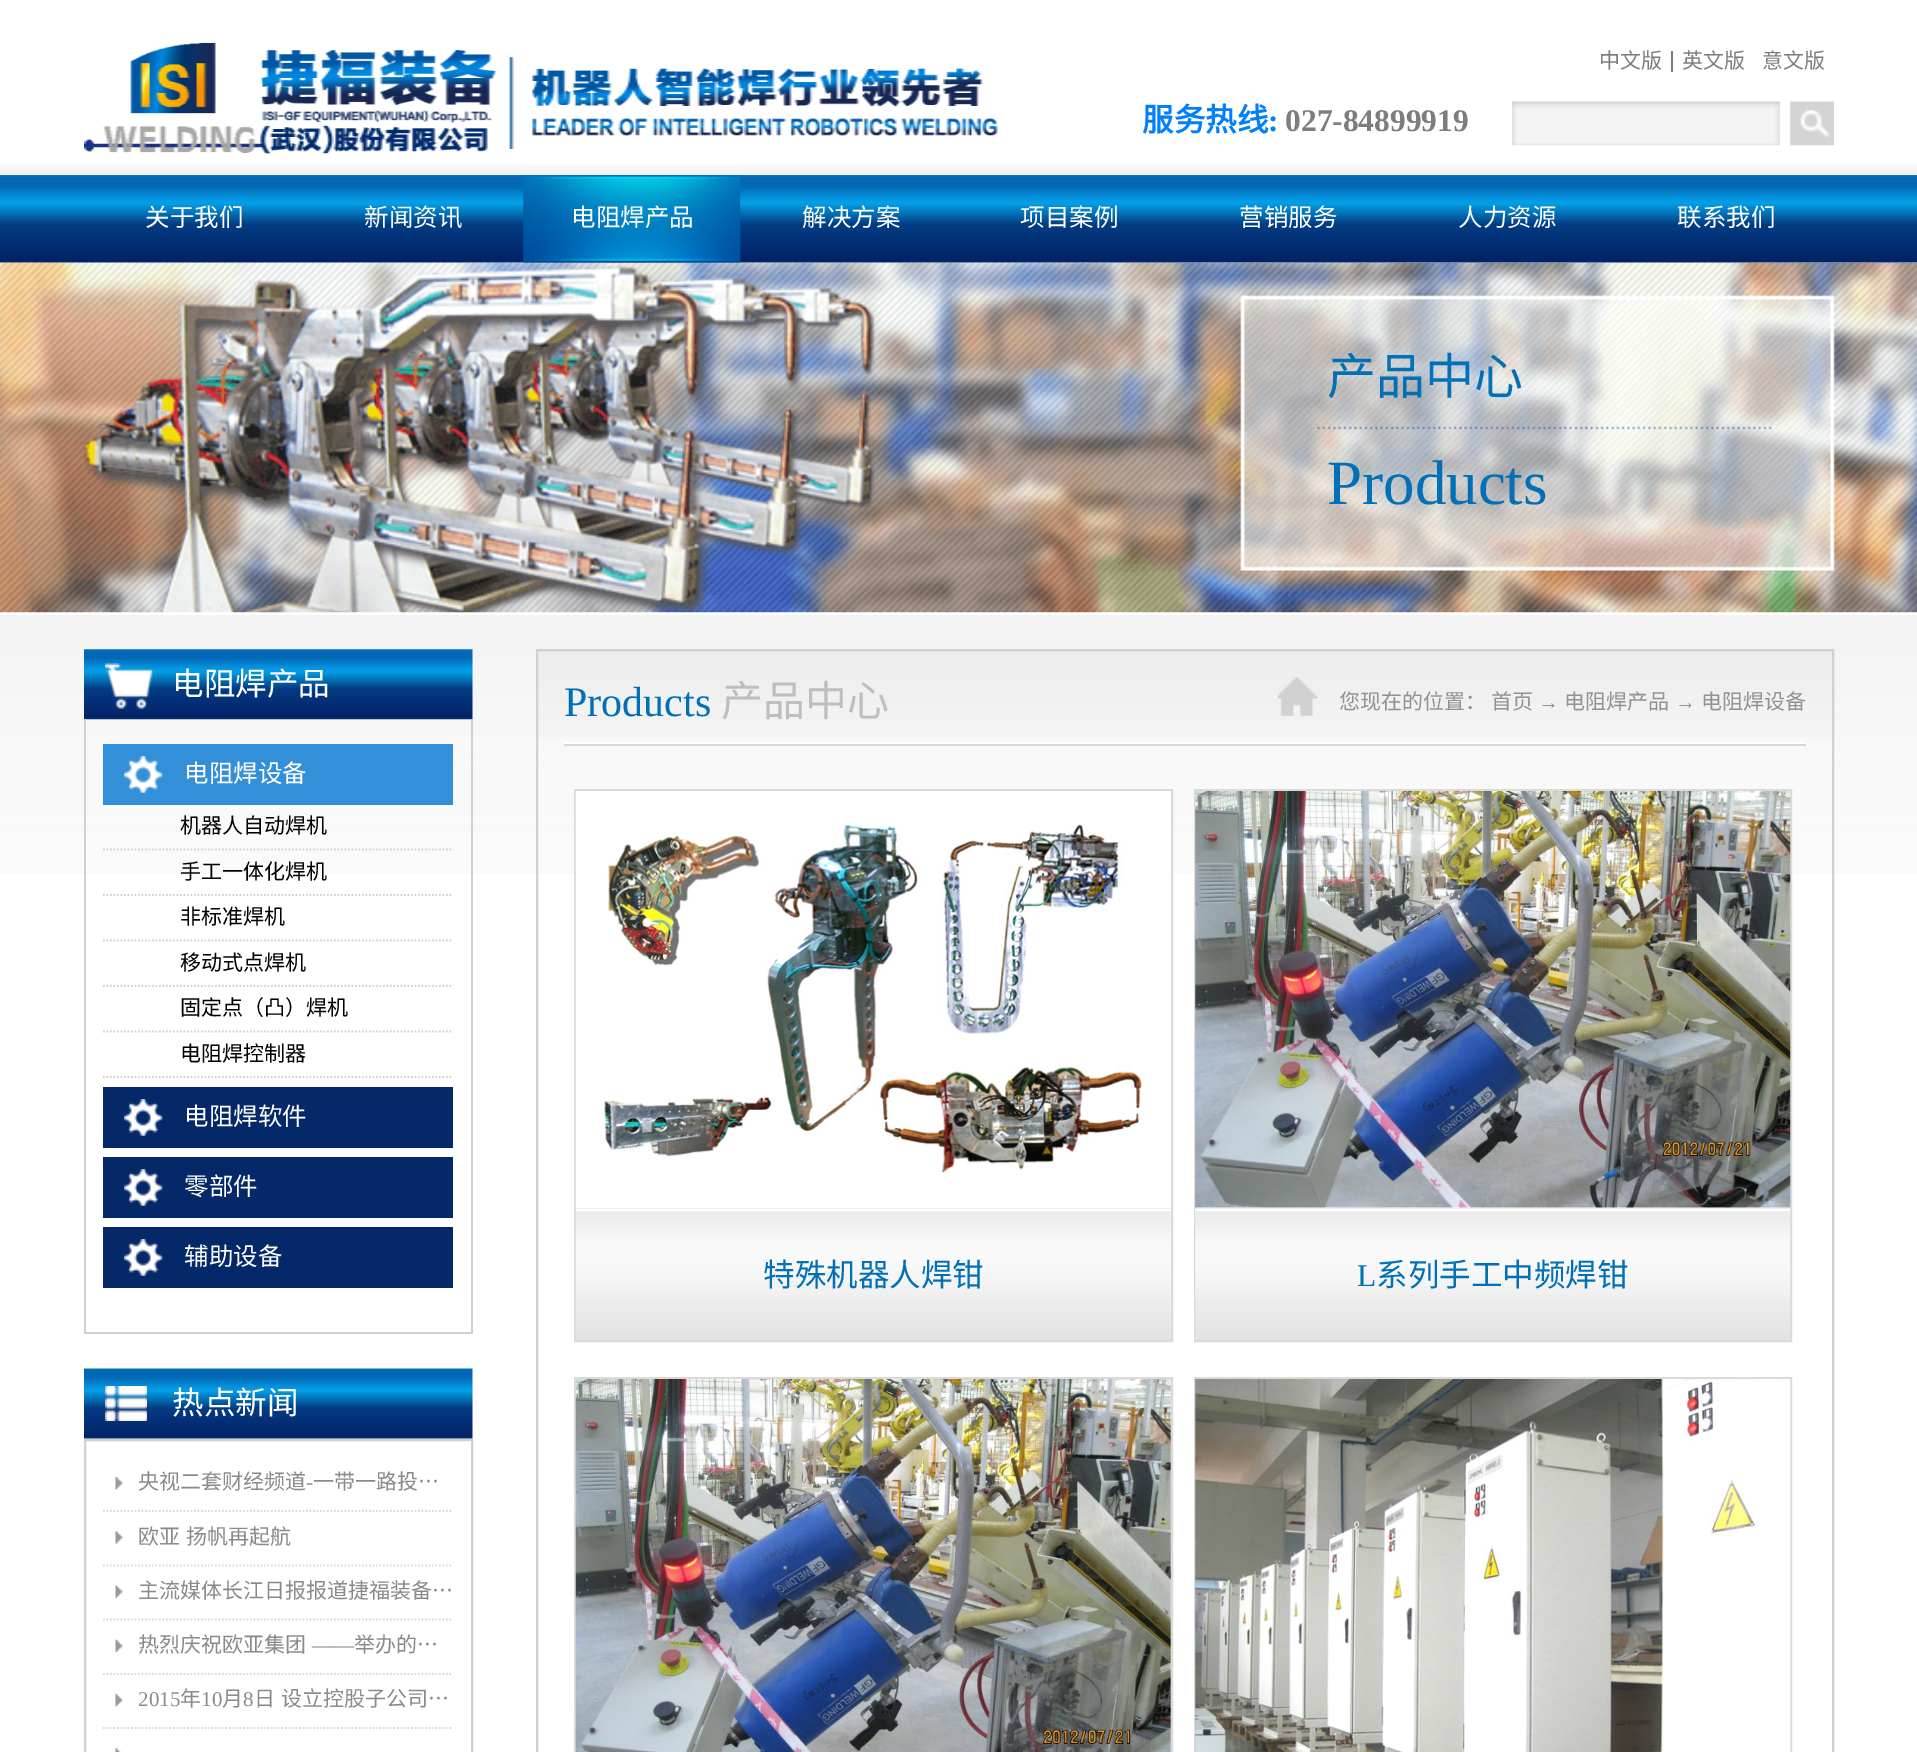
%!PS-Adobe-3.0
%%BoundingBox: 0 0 1917 1752
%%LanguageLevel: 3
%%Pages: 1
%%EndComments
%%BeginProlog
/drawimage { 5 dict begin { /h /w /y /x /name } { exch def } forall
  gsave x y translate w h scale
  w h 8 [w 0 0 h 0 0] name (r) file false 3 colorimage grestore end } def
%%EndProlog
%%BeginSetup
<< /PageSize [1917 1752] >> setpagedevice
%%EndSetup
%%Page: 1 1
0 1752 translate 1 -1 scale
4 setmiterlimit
1 setgray
0 0 1917 1752 rectfill
(images/1.raw) 0 164 1917 11 drawimage
(images/2.raw) 84 42 915 112 drawimage
0.49 setgray
1671 51 2 21 rectfill
(images/3.raw) 1512 101 268 45 drawimage
(images/4.raw) 1790 101 44 45 drawimage
(images/7.raw) 0 262 1917 351 drawimage
(images/5.raw) 0 175 1917 88 drawimage
(images/6.raw) 523 175 218 88 drawimage
(images/8.raw) 0 615 1917 259 drawimage
(images/9.raw) 84 649 389 71 drawimage
(images/10.raw) 105 663 48 46 drawimage
0.816 setgray
471 719 2 615 rectfill
84 1332 389 2 rectfill
84 719 2 615 rectfill
0.2 0.561 0.843 setrgbcolor
103 744 350 61 rectfill
(images/11.raw) 124 756 39 37 drawimage
0.827 setgray
1.8 setlinewidth
[1.75 1.75] 0 setdash
newpath 103 849.5 moveto 453 849.5 lineto stroke
newpath 103 895 moveto 453 895 lineto stroke
newpath 103 940.5 moveto 453 940.5 lineto stroke
newpath 103 986 moveto 453 986 lineto stroke
newpath 103 1031.5 moveto 453 1031.5 lineto stroke
newpath 103 1077 moveto 453 1077 lineto stroke
0.016 0.157 0.408 setrgbcolor
103 1087 350 61 rectfill
(images/12.raw) 124 1099 39 37 drawimage
103 1157 350 61 rectfill
(images/12.raw) 124 1169 39 37 drawimage
103 1227 350 61 rectfill
(images/12.raw) 124 1239 39 37 drawimage
(images/13.raw) 84 1368 389 71 drawimage
(images/14.raw) 105 1386 42 35 drawimage
0.816 setgray
2 setlinewidth
[] 0 setdash
85 1440 387 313 rectstroke
0.855 setgray
1.8 setlinewidth
[1.75 1.75] 0 setdash
newpath 103 1511 moveto 453 1511 lineto stroke
(images/15.raw) 115 1477 8 13 drawimage
newpath 103 1565.5 moveto 453 1565.5 lineto stroke
(images/16.raw) 115 1531 8 13 drawimage
newpath 103 1619.5 moveto 453 1619.5 lineto stroke
(images/17.raw) 115 1585 8 13 drawimage
newpath 103 1674 moveto 453 1674 lineto stroke
(images/18.raw) 115 1639 8 13 drawimage
newpath 103 1728 moveto 453 1728 lineto stroke
(images/15.raw) 115 1694 8 13 drawimage
(images/19.raw) 115 1748 6 4 drawimage
(images/20.raw) 538 651 1294 87 drawimage
0.816 setgray
2 setlinewidth
[] 0 setdash
537 650 1296 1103 rectstroke
1 setgray
564 742 1242 2 rectfill
(images/21.raw) 1277 677 41 39 drawimage
0.847 setgray
564 744 1242 2 rectfill
0.855 setgray
575 790 597 551 rectstroke
0.933 setgray
576 1208 595 1 rectfill
(images/22.raw) 575 791 596 417 drawimage
(images/23.raw) 575 1211 596 129 drawimage
0.855 setgray
1195 790 596 551 rectstroke
0.933 setgray
1195 1208 595 1 rectfill
(images/24.raw) 1195 791 596 417 drawimage
(images/25.raw) 1195 1211 596 129 drawimage
1 setgray
1195 1209 1 2 rectfill
0.855 setgray
575 1378 597 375 rectstroke
(images/26.raw) 575 1379 596 373 drawimage
1195 1378 596 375 rectstroke
(images/27.raw) 1195 1379 596 373 drawimage
/NotoSansCJKSC-Regular [21 0 0 -21 0 0] selectfont
0.49 setgray
1599 68 moveto (中文版) show
1682 68 moveto (英文版) show
1762 68 moveto (意文版) show
/NotoSansCJKSC-Bold [31.5 0 0 -31.5 0 0] selectfont
0 0.502 1 setrgbcolor
1142 131 moveto (服务热线) show
/LiberationSerif-Bold [31.5 0 0 -31.5 0 0] selectfont
1268 131 moveto (:) show
0.49 setgray
1285 131 moveto (027-84899919) show
/NotoSansCJKSC-Regular [24.5 0 0 -24.5 0 0] selectfont
1 setgray
145 226 moveto (关于我们) show
364 226 moveto (新闻资讯) show
571 226 moveto (电阻焊产品) show
802 226 moveto (解决方案) show
1020 226 moveto (项目案例) show
1239 226 moveto (营销服务) show
1458 226 moveto (人力资源) show
1677 226 moveto (联系我们) show
/NotoSansCJKSC-Regular [49 0 0 -49 0 0] selectfont
0.004 0.439 0.718 setrgbcolor
1327 394 moveto (产品中心) show
/LiberationSerif-Regular [63 0 0 -63 0 0] selectfont
1327 504 moveto (Products) show
/NotoSansCJKSC-Regular [31.5 0 0 -31.5 0 0] selectfont
1 setgray
172 695 moveto (电阻焊产品) show
/NotoSansCJKSC-Regular [24.5 0 0 -24.5 0 0] selectfont
184 782 moveto (电阻焊设备) show
/NotoSansCJKSC-Regular [21 0 0 -21 0 0] selectfont
0 setgray
180 833 moveto (机器人自动焊机) show
180 879 moveto (手工一体化焊机) show
180 924 moveto (非标准焊机) show
180 970 moveto (移动式点焊机) show
180 1015 moveto (固定点（凸）焊机) show
180 1061 moveto (电阻焊控制器) show
/NotoSansCJKSC-Regular [24.5 0 0 -24.5 0 0] selectfont
1 setgray
184 1125 moveto (电阻焊软件) show
184 1195 moveto (零部件) show
184 1265 moveto (辅助设备) show
/NotoSansCJKSC-Regular [31.5 0 0 -31.5 0 0] selectfont
172 1414 moveto (热点新闻) show
/NotoSansCJKSC-Regular [21 0 0 -21 0 0] selectfont
0.541 setgray
138 1489 moveto (央视二套财经频道) show
/LiberationSerif-Regular [21 0 0 -21 0 0] selectfont
306 1489 moveto (-) show
/NotoSansCJKSC-Regular [21 0 0 -21 0 0] selectfont
313 1489 moveto (一带一路投…) show
138 1544 moveto 1 0 32 (欧亚 扬帆再起航) widthshow
138 1598 moveto (主流媒体长江日报报道捷福装备…) show
138 1652 moveto (热烈庆祝欧亚集团) show
/LiberationSerif-Regular [21 0 0 -21 0 0] selectfont
312 1652 moveto (——) show
/NotoSansCJKSC-Regular [21 0 0 -21 0 0] selectfont
354 1652 moveto (举办的…) show
/LiberationSerif-Regular [21 0 0 -21 0 0] selectfont
138 1706 moveto (2015) show
/NotoSansCJKSC-Regular [21 0 0 -21 0 0] selectfont
180 1706 moveto (年) show
/LiberationSerif-Regular [21 0 0 -21 0 0] selectfont
201 1706 moveto (10) show
/NotoSansCJKSC-Regular [21 0 0 -21 0 0] selectfont
222 1706 moveto (月) show
/LiberationSerif-Regular [21 0 0 -21 0 0] selectfont
243 1706 moveto (8) show
/NotoSansCJKSC-Regular [21 0 0 -21 0 0] selectfont
254 1706 moveto 1 0 32 (日 设立控股子公司…) widthshow
/LiberationSerif-Regular [42 0 0 -42 0 0] selectfont
0.004 0.439 0.718 setrgbcolor
564 716 moveto (Products) show
/NotoSansCJKSC-Regular [42 0 0 -42 0 0] selectfont
0.745 setgray
721 716 moveto (产品中心) show
/NotoSansCJKSC-Regular [21 0 0 -21 0 0] selectfont
0.573 setgray
1339 709 moveto (您现在的位置：) show
1491 709 moveto (首页) show
/LiberationSerif-Regular [21 0 0 -21 0 0] selectfont
1538 709 moveto (→) show
/NotoSansCJKSC-Regular [21 0 0 -21 0 0] selectfont
1564 709 moveto (电阻焊产品) show
/LiberationSerif-Regular [21 0 0 -21 0 0] selectfont
1675 709 moveto (→) show
/NotoSansCJKSC-Regular [21 0 0 -21 0 0] selectfont
1701 709 moveto (电阻焊设备) show
/NotoSansCJKSC-Regular [31.5 0 0 -31.5 0 0] selectfont
0.004 0.439 0.718 setrgbcolor
763 1286 moveto (特殊机器人焊钳) show
/LiberationSerif-Regular [31.5 0 0 -31.5 0 0] selectfont
1357 1286 moveto (L) show
/NotoSansCJKSC-Regular [31.5 0 0 -31.5 0 0] selectfont
1376 1286 moveto (系列手工中频焊钳) show
showpage
%%EOF
